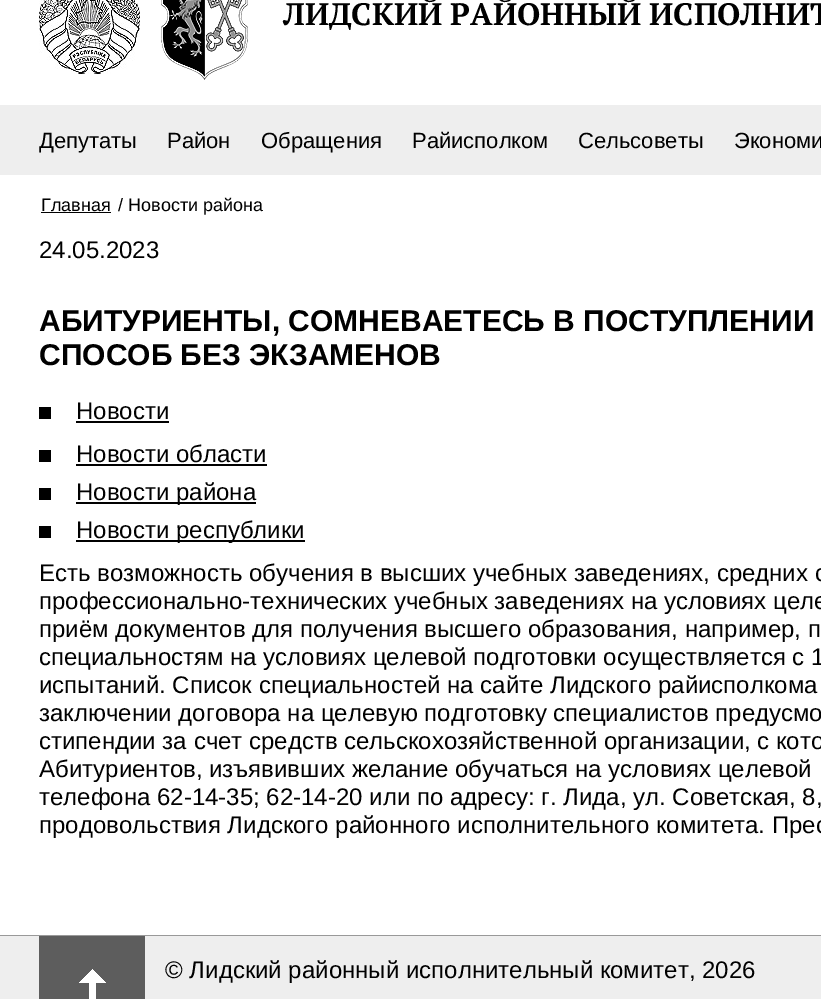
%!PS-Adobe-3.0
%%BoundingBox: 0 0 821 999
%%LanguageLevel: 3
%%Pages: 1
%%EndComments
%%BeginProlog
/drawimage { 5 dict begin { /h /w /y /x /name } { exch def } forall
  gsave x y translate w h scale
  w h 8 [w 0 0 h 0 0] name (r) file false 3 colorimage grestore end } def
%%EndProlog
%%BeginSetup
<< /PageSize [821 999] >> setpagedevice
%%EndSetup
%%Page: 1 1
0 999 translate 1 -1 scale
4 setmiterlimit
1 setgray
0 0 821 999 rectfill
(images/1.raw) 39 0 101 74 drawimage
(images/2.raw) 161 0 87 80 drawimage
0.933 setgray
0 105 821 70 rectfill
0 setgray
41 212 70 1 rectfill
39 407 12 12 rectfill
76 421 93 2 rectfill
39 450 12 12 rectfill
76 464 191 2 rectfill
39 488 12 12 rectfill
76 502 180 2 rectfill
39 526 12 12 rectfill
76 540 229 2 rectfill
0.933 setgray
0 936 821 63 rectfill
0.6 setgray
0 935 821 1 rectfill
0.365 setgray
39 936 106 63 rectfill
(images/3.raw) 79 969 27 30 drawimage
/PTSerif-Bold [31 0 0 -31 0 0] selectfont
0 setgray
283 25 moveto (ЛИДСКИЙ РАЙОННЫЙ ИСПОЛНИТ) show
/LiberationSans-Regular [22 0 0 -22 0 0] selectfont
39 148 moveto (Депутаты) show
167 148 moveto (Район) show
261 148 moveto (Обращения) show
412 148 moveto (Райисполком) show
578 148 moveto (Сельсоветы) show
734 148 moveto (Экономи) show
/LiberationSans-Regular [18 0 0 -18 0 0] selectfont
41 211 moveto (Главная) show
118 211 moveto (/ Новости района) show
/LiberationSans-Regular [24 0 0 -24 0 0] selectfont
39 258 moveto (24.05.2023) show
/LiberationSans-Bold [30 0 0 -30 0 0] selectfont
39 331 moveto (АБИТУРИЕНТЫ, СОМНЕВАЕТЕСЬ В ПОСТУПЛЕНИИ) show
39 365 moveto (СПОСОБ БЕЗ ЭКЗАМЕНОВ) show
/LiberationSans-Regular [24 0 0 -24 0 0] selectfont
76 419 moveto (Новости) show
76 462 moveto (Новости области) show
76 500 moveto (Новости района) show
76 538 moveto (Новости республики) show
39 581 moveto (Есть возможность обучения в высших учебных заведениях, средних с) show
39 609 moveto (профессионально-технических учебных заведениях на условиях целе) show
39 637 moveto (приём документов для получения высшего образования, например, п) show
39 665 moveto (специальностям на условиях целевой подготовки осуществляется с 1) show
39 693 moveto (испытаний. Список специальностей на сайте Лидского райисполкома) show
39 721 moveto (заключении договора на целевую подготовку специалистов предусмо) show
39 749 moveto (стипендии за счет средств сельскохозяйственной организации, с кото) show
39 777 moveto (Абитуриентов, изъявивших желание обучаться на условиях целевой) show
39 805 moveto (телефона 62-14-35; 62-14-20 или по адресу: г. Лида, ул. Советская, 8,) show
39 833 moveto (продовольствия Лидского районного исполнительного комитета. Прес) show
165 978 moveto (© Лидский районный исполнительный комитет, 2026) show
showpage
%%EOF
